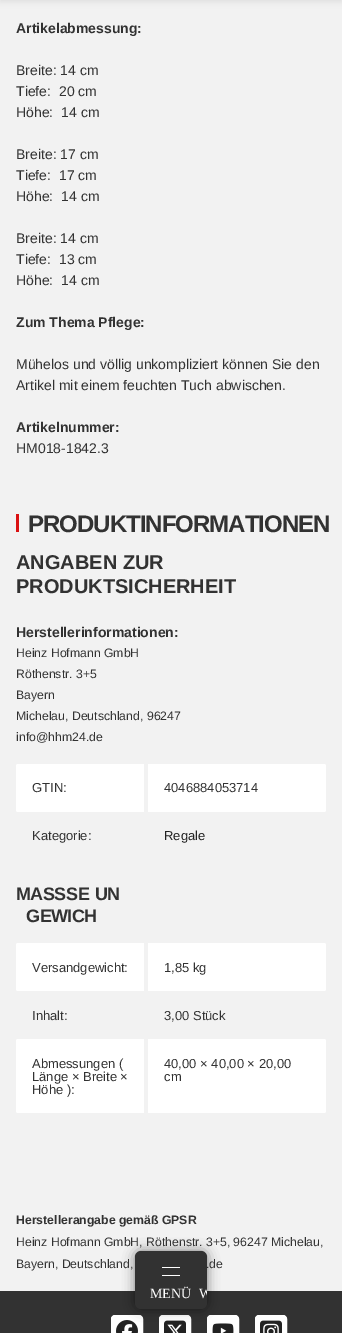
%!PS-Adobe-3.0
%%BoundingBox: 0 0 342 1333
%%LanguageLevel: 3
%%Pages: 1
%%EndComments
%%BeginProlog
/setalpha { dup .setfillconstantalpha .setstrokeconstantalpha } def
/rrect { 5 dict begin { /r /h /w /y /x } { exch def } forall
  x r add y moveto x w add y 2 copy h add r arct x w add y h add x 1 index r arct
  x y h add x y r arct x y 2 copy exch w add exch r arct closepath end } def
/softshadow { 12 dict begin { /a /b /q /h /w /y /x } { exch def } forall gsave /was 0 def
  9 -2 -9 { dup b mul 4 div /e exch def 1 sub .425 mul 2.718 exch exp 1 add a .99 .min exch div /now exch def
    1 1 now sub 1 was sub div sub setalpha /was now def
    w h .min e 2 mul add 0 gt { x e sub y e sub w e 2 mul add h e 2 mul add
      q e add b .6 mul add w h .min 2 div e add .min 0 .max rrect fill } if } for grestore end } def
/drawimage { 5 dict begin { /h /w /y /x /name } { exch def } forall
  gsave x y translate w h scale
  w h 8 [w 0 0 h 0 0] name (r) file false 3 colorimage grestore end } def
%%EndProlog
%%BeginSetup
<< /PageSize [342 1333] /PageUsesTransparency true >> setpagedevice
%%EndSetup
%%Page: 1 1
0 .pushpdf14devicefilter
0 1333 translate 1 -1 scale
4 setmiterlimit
0.949 setgray
0 0 342 1333 rectfill
0 setgray
0 -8 342 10 0 3 0.07 softshadow
0.855 0.067 0.071 setrgbcolor
16 514 3 18 rectfill
1 setgray
16 764 130 48 2 rrect fill
146 764 180 48 2 rrect fill
0.949 setgray
144 764 4 50 rectfill
1 setgray
16 943 130 48 2 rrect fill
146 943 180 48 2 rrect fill
0.949 setgray
144 941 4 52 rectfill
1 setgray
16 1039 130 74 2 rrect fill
146 1039 180 74 2 rrect fill
0.949 setgray
144 1037 4 76 rectfill
0.196 setgray
0 1291 342 42 rectfill
1 setgray
111.5 1315.5 31 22 3.5 rrect gsave fill grestore
stroke
(images/1.raw) 116 1320 22 13 drawimage
159.5 1315.5 31 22 3.5 rrect gsave fill grestore
stroke
(images/2.raw) 164 1320 22 13 drawimage
207.5 1315.5 31 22 3.5 rrect gsave fill grestore
stroke
(images/3.raw) 212 1323 22 10 drawimage
0 setgray
135 1251 72 58 6 6 0.5 softshadow
0.196 setgray
135 1251 72 58 6 rrect fill
1 setgray
162 1267 18 1 rectfill
162 1275 18 1 rectfill
255.5 1315.5 31 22 3.5 rrect gsave fill grestore
stroke
(images/4.raw) 260 1320 22 13 drawimage
/LiberationSans-Bold [14 0 0 -14 0 0] selectfont
0.196 setgray
16 33 moveto (Artikelabmessung:) show
/LiberationSans-Regular [14 0 0 -14 0 0] selectfont
16 75 moveto (Breite: 14 cm) show
16 96 moveto (Tiefe:  20 cm) show
16 117 moveto (Höhe:  14 cm) show
16 159 moveto (Breite: 17 cm) show
16 180 moveto (Tiefe:  17 cm) show
16 201 moveto (Höhe:  14 cm) show
16 243 moveto (Breite: 14 cm) show
16 264 moveto (Tiefe:  13 cm) show
16 285 moveto (Höhe:  14 cm) show
/LiberationSans-Bold [14 0 0 -14 0 0] selectfont
16 327 moveto (Zum Thema Pflege:) show
/LiberationSans-Regular [14 0 0 -14 0 0] selectfont
16 369 moveto (Mühelos und völlig unkompliziert können Sie den) show
16 390 moveto (Artikel mit einem feuchten Tuch abwischen.) show
/LiberationSans-Bold [14 0 0 -14 0 0] selectfont
16 432 moveto (Artikelnummer:) show
/LiberationSans-Regular [14 0 0 -14 0 0] selectfont
16 453 moveto (HM018-1842.3) show
/LiberationSans-Bold [24 0 0 -24 0 0] selectfont
28 532 moveto -1 0 (PRODUKTINFORMATIONEN) ashow
/LiberationSans-Bold [20 0 0 -20 0 0] selectfont
16 569 moveto (ANGABEN ZUR) show
16 593 moveto (PRODUKTSICHERHEIT) show
/LiberationSans-Bold [14 0 0 -14 0 0] selectfont
16 637 moveto (Herstellerinformationen:) show
/LiberationSans-Regular [12.25 0 0 -12.25 0 0] selectfont
16 657 moveto (Heinz Hofmann GmbH) show
16 678 moveto (Röthenstr. 3+5) show
16 699 moveto (Bayern) show
16 720 moveto (Michelau, Deutschland, 96247) show
16 741 moveto (info@hhm24.de) show
/LiberationSans-Regular [13 0 0 -13 0 0] selectfont
32 792 moveto (GTIN:) show
164 792 moveto (4046884053714) show
32 840 moveto (Kategorie:) show
0.133 setgray
164 840 moveto (Regale) show
/LiberationSans-Bold [18 0 0 -18 0 0] selectfont
0.196 setgray
16 900 moveto -0.5 0 (MASS) ashow
66 900 moveto 1 0 32 -0.5 0 (SE UN) awidthshow
26 922 moveto -0.5 0 (GEWICH) ashow
/LiberationSans-Regular [13 0 0 -13 0 0] selectfont
32 972 moveto (Versandgewicht:) show
164 972 moveto (1,85 kg) show
32 1020 moveto (Inhalt:) show
164 1020 moveto (3,00 Stück) show
32 1068 moveto (Abmessungen \() show
32 1081 moveto (Länge × Breite ×) show
32 1094 moveto (Höhe \):) show
164 1068 moveto (40,00 × 40,00 × 20,00) show
164 1081 moveto (cm) show
/LiberationSans-Bold [12.25 0 0 -12.25 0 0] selectfont
16 1224 moveto (Herstellerangabe gemäß GPSR) show
/LiberationSans-Regular [12.25 0 0 -12.25 0 0] selectfont
16 1246 moveto (Heinz Hofmann GmbH, Röthenstr. 3+5, 96247 Michelau,) show
16 1268 moveto (Bayern, Deutschland,) show
206 1268 moveto (.de) show
/LiberationSerif-Regular [14 0 0 -14 0 0] selectfont
1 setgray
150 1298 moveto (MENÜ) show
gsave
135 1251 72 58 6 rrect clip newpath
199 1298 moveto (W) show
grestore
.poppdf14devicefilter showpage
%%EOF
